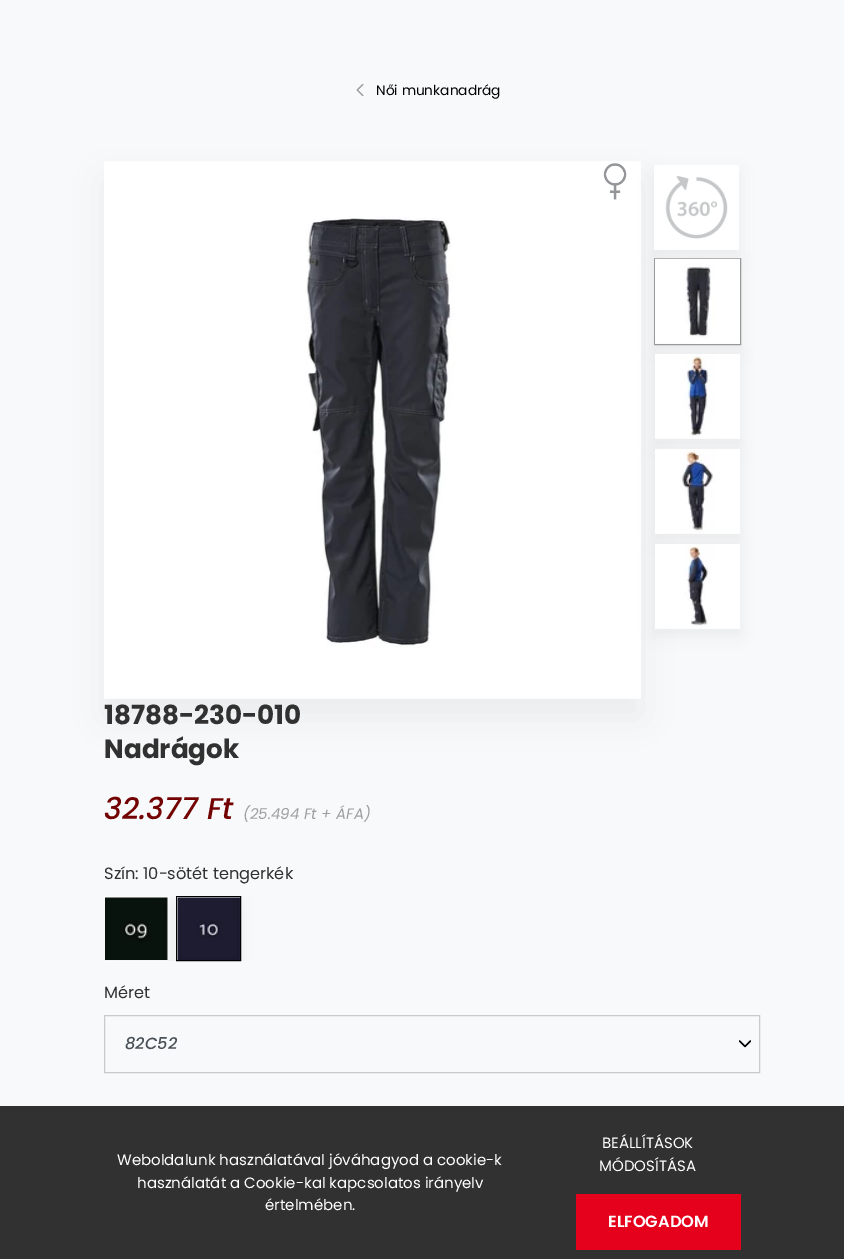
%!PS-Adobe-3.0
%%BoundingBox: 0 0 844 1259
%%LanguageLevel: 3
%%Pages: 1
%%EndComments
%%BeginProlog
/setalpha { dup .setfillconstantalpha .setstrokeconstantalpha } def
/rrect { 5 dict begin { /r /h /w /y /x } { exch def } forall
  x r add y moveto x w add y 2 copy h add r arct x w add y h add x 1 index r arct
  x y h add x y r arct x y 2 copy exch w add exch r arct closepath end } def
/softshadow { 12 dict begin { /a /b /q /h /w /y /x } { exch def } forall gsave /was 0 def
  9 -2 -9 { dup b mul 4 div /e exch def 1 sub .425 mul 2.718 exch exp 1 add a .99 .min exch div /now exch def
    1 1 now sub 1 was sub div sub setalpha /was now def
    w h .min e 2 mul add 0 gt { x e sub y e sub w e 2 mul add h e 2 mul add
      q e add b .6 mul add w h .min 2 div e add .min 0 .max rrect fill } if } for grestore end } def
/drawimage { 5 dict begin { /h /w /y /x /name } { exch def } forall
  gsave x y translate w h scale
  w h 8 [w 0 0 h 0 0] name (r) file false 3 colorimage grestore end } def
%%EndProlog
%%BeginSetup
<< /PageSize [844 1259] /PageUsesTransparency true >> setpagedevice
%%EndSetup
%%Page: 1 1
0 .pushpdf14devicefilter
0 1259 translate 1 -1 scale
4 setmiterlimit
0.973 0.976 0.98 setrgbcolor
0 0 844 1259 rectfill
(images/1.raw) 356 84 8 12 drawimage
0 setgray
104 180 537 538 0 19 0.05 softshadow
(images/2.raw) 104 161 537 538 drawimage
654 171 85 85 0 9 0.05 softshadow
1 setgray
654 165 85 85 rectfill
(images/3.raw) 665 175 63 64 drawimage
0 setgray
654 264 87 87 0 9 0.05 softshadow
0.604 setgray
654.5 258.5 86 86 rectstroke
(images/4.raw) 655 258 85 86 drawimage
0 setgray
654 359 87 87 0 9 0.05 softshadow
(images/5.raw) 655 354 85 85 drawimage
654 454 87 87 0 9 0.05 softshadow
(images/6.raw) 655 449 85 85 drawimage
654 549 87 87 0 9 0.05 softshadow
(images/7.raw) 655 544 85 85 drawimage
(images/8.raw) 603 163 24 37 drawimage
1 setgray
104.5 896.5 64 64 rectstroke
gsave
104 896 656 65 rectclip
0 setgray
105 904 63 62 0 9 0.05 softshadow
grestore
167 898 1 62 rectfill
(images/9.raw) 105 897 63 63 drawimage
0.937 0.941 0.945 setrgbcolor
newpath 176.5 896.5 moveto 240.5 896.5 lineto 240.5 960.5 lineto 176.5 960.5 lineto closepath gsave fill grestore
0 setgray
stroke
gsave
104 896 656 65 rectclip
178 904 62 62 0 9 0.05 softshadow
grestore
(images/10.raw) 177 897 63 63 drawimage
(images/11.raw) 739 1040 12 8 drawimage
0.792 setgray
104.5 1015.5 655 57 rectstroke
0.192 setgray
0 1106 844 153 rectfill
0.898 0 0.11 setrgbcolor
576 1194 165 56 rectfill
/Poppins-Regular [13.75 0 0 -13.75 0 0] selectfont
0 setgray
376 95 moveto (Női munkanadrág) show
/Poppins-Bold [26.25 0 0 -26.25 0 0] selectfont
0.192 setgray
104 724 moveto (18788-230-010) show
104 758 moveto (Nadrágok) show
/Poppins-MediumItalic [30 0 0 -30 0 0] selectfont
0.451 0.008 0.008 setrgbcolor
104 819 moveto (32.377 Ft) show
/Poppins-Italic [15 0 0 -15 0 0] selectfont
0.624 setgray
243 819 moveto (\(25.494 Ft + ÁFA\)) show
/Poppins-Regular [16.25 0 0 -16.25 0 0] selectfont
0.192 setgray
104 879 moveto (Szín: 10-sötét tengerkék) show
104 998 moveto (Méret) show
/Poppins-MediumItalic [16.25 0 0 -16.25 0 0] selectfont
0.286 0.314 0.341 setrgbcolor
125 1049 moveto (82C52) show
/Poppins-Regular [15 0 0 -15 0 0] selectfont
1 setgray
117 1165 moveto (Weboldalunk használatával jóváhagyod a cookie-k) show
137 1188 moveto (használatát a Cookie-kal kapcsolatos irányelv) show
265 1210 moveto (értelmében.) show
602 1148 moveto (BEÁLLÍTÁSOK) show
599 1171 moveto (MÓDOSÍTÁSA) show
/Poppins-SemiBold [16.25 0 0 -16.25 0 0] selectfont
608 1227 moveto (ELFOGADOM) show
.poppdf14devicefilter showpage
%%EOF
